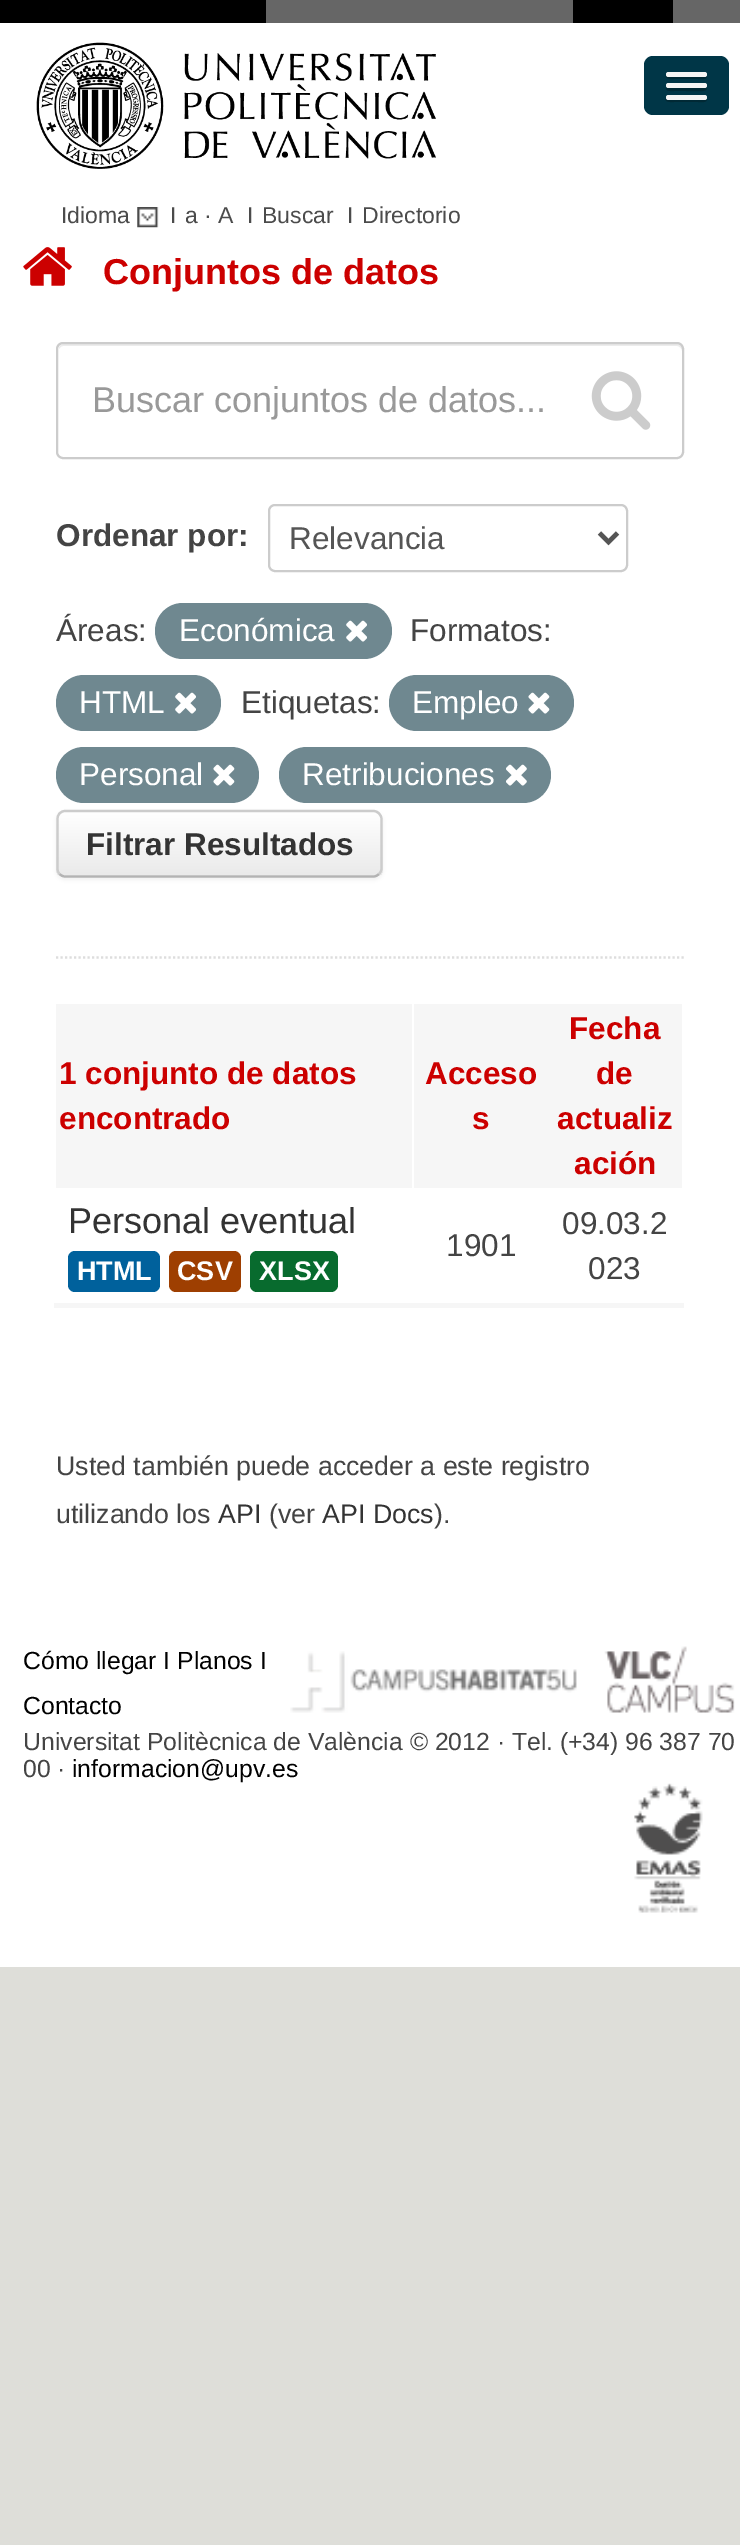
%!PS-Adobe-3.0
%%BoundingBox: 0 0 740 2545
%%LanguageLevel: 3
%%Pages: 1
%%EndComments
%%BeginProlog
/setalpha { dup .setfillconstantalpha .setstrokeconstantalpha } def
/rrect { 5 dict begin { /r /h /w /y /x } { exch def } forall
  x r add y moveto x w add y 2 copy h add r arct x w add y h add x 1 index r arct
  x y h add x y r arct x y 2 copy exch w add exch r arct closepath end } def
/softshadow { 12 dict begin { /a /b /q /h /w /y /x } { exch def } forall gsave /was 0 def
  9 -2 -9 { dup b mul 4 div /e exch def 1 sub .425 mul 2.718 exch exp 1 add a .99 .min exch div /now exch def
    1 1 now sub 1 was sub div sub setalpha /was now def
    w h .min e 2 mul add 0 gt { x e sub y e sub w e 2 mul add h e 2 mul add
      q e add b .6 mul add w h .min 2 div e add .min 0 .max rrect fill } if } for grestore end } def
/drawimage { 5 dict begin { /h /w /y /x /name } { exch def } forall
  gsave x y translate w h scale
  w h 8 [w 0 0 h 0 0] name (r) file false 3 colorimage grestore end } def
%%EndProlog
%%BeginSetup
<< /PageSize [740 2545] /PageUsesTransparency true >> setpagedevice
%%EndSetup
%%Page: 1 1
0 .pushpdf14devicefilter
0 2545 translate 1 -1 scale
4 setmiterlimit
0.871 0.871 0.851 setrgbcolor
0 0 740 2545 rectfill
0.4 setgray
266 0 474 23 rectfill
0 setgray
0 0 266 23 rectfill
573 0 100 23 rectfill
1 setgray
0 23 740 1559 rectfill
(images/1.raw) 36 42 400 127 drawimage
0 0.212 0.278 setrgbcolor
644 56 85 59 9 rrect fill
0 0.161 0.208 setrgbcolor
newpath 666 75 moveto 664 80 674 79 674 79 curveto 698 79 lineto 700 79 706 80 707 77 curveto 706 75 lineto 706 76 705 76 704 76 curveto 668 76 lineto 667 76 667 76 666 75 curveto closepath fill
0.961 setgray
666 72 41 5 2.5 rrect fill
0 0.161 0.208 setrgbcolor
newpath 667 87 moveto 663 92 674 91 674 91 curveto 686 91 lineto 690 91 704 92 706 90 curveto 707 89 707 88 706 87 curveto 705 88 lineto 668 88 lineto closepath fill
0.961 setgray
666 83 41 5 2.5 rrect fill
0 0.161 0.208 setrgbcolor
newpath 666 98 moveto 663 103 674 102 674 102 curveto 698 102 lineto 700 102 706 103 707 100 curveto 706 98 lineto 705 99 lineto 668 99 lineto closepath fill
0.961 setgray
666 95 41 5 2.5 rrect fill
(images/2.raw) 137 207 22 21 drawimage
(images/3.raw) 23 247 49 39 drawimage
0.867 setgray
2.2 setlinewidth
[2.25 2.25] 0 setdash
newpath 56 957.5 moveto 684 957.5 lineto stroke
0.925 setgray
newpath 63 346 moveto 677 346 lineto 680 346 682 349 682 351 curveto 682 349 lineto 682 346 680 344 677 344 curveto 64 344 lineto 61 344 59 346 59 349 curveto 60 347 62 346 63 346 curveto closepath fill
0.8 setgray
2 setlinewidth
[] 0 setdash
57 343 626 115 6 rrect stroke
(images/4.raw) 591 371 60 59 drawimage
269 505 358 66 6 rrect stroke
0.333 setgray
4.5 setlinewidth
newpath 599.5 533 moveto 608.5 542 lineto 617.5 533 lineto stroke
0.435 0.533 0.565 setrgbcolor
155 603 237 56 28 rrect fill
(images/5.raw) 346 620 21 22 drawimage
56 675 165 56 28 rrect fill
(images/5.raw) 175 692 21 22 drawimage
389 675 185 56 28 rrect fill
(images/6.raw) 528 692 22 22 drawimage
56 747 203 56 28 rrect fill
(images/6.raw) 213 764 22 22 drawimage
279 747 272 56 28 rrect fill
(images/7.raw) 506 764 21 22 drawimage
0 setgray
56 812 327 68 9 2 0.05 softshadow
0.969 setgray
56 810 327 68 9 rrect fill
gsave
56 810 327 68 9 rrect clip newpath
gsave newpath 56 812 moveto 383 812 lineto 383 875 lineto 56 875 lineto closepath clip newpath
<< /ShadingType 2 /ColorSpace /DeviceRGB /Coords [219 812 219 875] /Extend [true true] /Function << /FunctionType 2 /Domain [0 1] /C0 [1 1 1] /C1 [0.918 0.918 0.918] /N 1 >> >> shfill grestore
grestore
0.702 setgray
2.2 setlinewidth
newpath 379 874 moveto 377.5 875.5 375.5 876.5 373.5 876.5 curveto 65 876.5 lineto 63 876.5 61 875.5 59.5 874 curveto stroke
0.8 setgray
newpath 59.5 874 moveto 58 872.5 57.5 870.5 57.5 868.5 curveto 57.5 819 lineto 57.5 817 58 815 59.5 813.5 curveto 61 812 63 811 65 811 curveto 373.5 811 lineto 375.5 811 377.5 812 379 813.5 curveto 380.5 815 381.5 817 381.5 819 curveto 381.5 868.5 lineto 381.5 870.5 380.5 872.5 379 874 curveto stroke
0.965 setgray
56 1004 356 184 rectfill
414 1004 268 184 rectfill
0 0.38 0.612 setrgbcolor
68 1251 92 41 7 rrect fill
0.62 0.247 0.004 setrgbcolor
169 1251 72 41 7 rrect fill
0.031 0.42 0.18 setrgbcolor
250 1251 88 41 7 rrect fill
0.965 setgray
54 1303 630 5 rectfill
1 setgray
0 1582 740 385 rectfill
(images/8.raw) 604 1646 131 67 drawimage
(images/9.raw) 290 1651 287 62 drawimage
(images/10.raw) 634 1783 69 130 drawimage
/LiberationSans-Regular [23 0 0 -23 0 0] selectfont
0.294 setgray
61 223 moveto (Idioma) show
170 223 moveto (I) show
185 223 moveto (a · A) show
247 223 moveto (I) show
262 223 moveto (Buscar) show
347 223 moveto (I) show
362 223 moveto (Directorio) show
/LiberationSans-Bold [36 0 0 -36 0 0] selectfont
0.8 0 0 setrgbcolor
103 284 moveto (Conjuntos de datos) show
/LiberationSans-Regular [36 0 0 -36 0 0] selectfont
0.6 setgray
92 412 moveto (Buscar conjuntos de datos...) show
/LiberationSans-Bold [31.5 0 0 -31.5 0 0] selectfont
0.267 setgray
56 546 moveto (Ordenar por:) show
/LiberationSans-Regular [31.5 0 0 -31.5 0 0] selectfont
0.333 setgray
289 549 moveto (Relevancia) show
0.267 setgray
56 641 moveto (Áreas:) show
1 setgray
179 641 moveto (Económica) show
0.267 setgray
410 641 moveto (Formatos:) show
1 setgray
79 713 moveto (HTML) show
0.267 setgray
241 713 moveto (Etiquetas:) show
1 setgray
412 713 moveto (Empleo) show
79 785 moveto (Personal) show
302 785 moveto (Retribuciones) show
/LiberationSans-Bold [31.5 0 0 -31.5 0 0] selectfont
0.2 setgray
86 855 moveto (Filtrar Resultados) show
0.8 0 0 setrgbcolor
59 1084 moveto (1 conjunto de datos) show
59 1129 moveto (encontrado) show
425 1084 moveto (Acceso) show
472 1129 moveto (s) show
569 1039 moveto (Fecha) show
596 1084 moveto (de) show
557 1129 moveto (actualiz) show
574 1174 moveto (ación) show
/LiberationSans-Regular [36 0 0 -36 0 0] selectfont
0.2 setgray
68 1233 moveto (Personal eventual) show
/LiberationSans-Bold [27 0 0 -27 0 0] selectfont
1 setgray
77 1280 moveto (HTML) show
177 1280 moveto (CSV) show
259 1280 moveto (XLSX) show
/LiberationSans-Regular [31.5 0 0 -31.5 0 0] selectfont
0.267 setgray
446 1256 moveto (1901) show
562 1234 moveto (09.03.2) show
588 1279 moveto (023) show
/LiberationSans-Regular [26.75 0 0 -26.75 0 0] selectfont
56 1475 moveto (Usted también puede acceder a este registro) show
56 1523 moveto (utilizando los) show
0.2 setgray
218 1523 moveto (API) show
0.267 setgray
269 1523 moveto (\(ver) show
0.2 setgray
322 1523 moveto (API Docs) show
0.267 setgray
434 1523 moveto (\).) show
/LiberationSans-Regular [24.75 0 0 -24.75 0 0] selectfont
0 setgray
23 1669 moveto (Cómo llegar I Planos I) show
23 1714 moveto (Contacto) show
0.267 setgray
23 1750 moveto (Universitat Politècnica de València © 2012 · Tel. \(+34\) 96 387 70) show
23 1777 moveto (00 ·) show
0 setgray
72 1777 moveto (informacion@upv.es) show
.poppdf14devicefilter showpage
%%EOF
